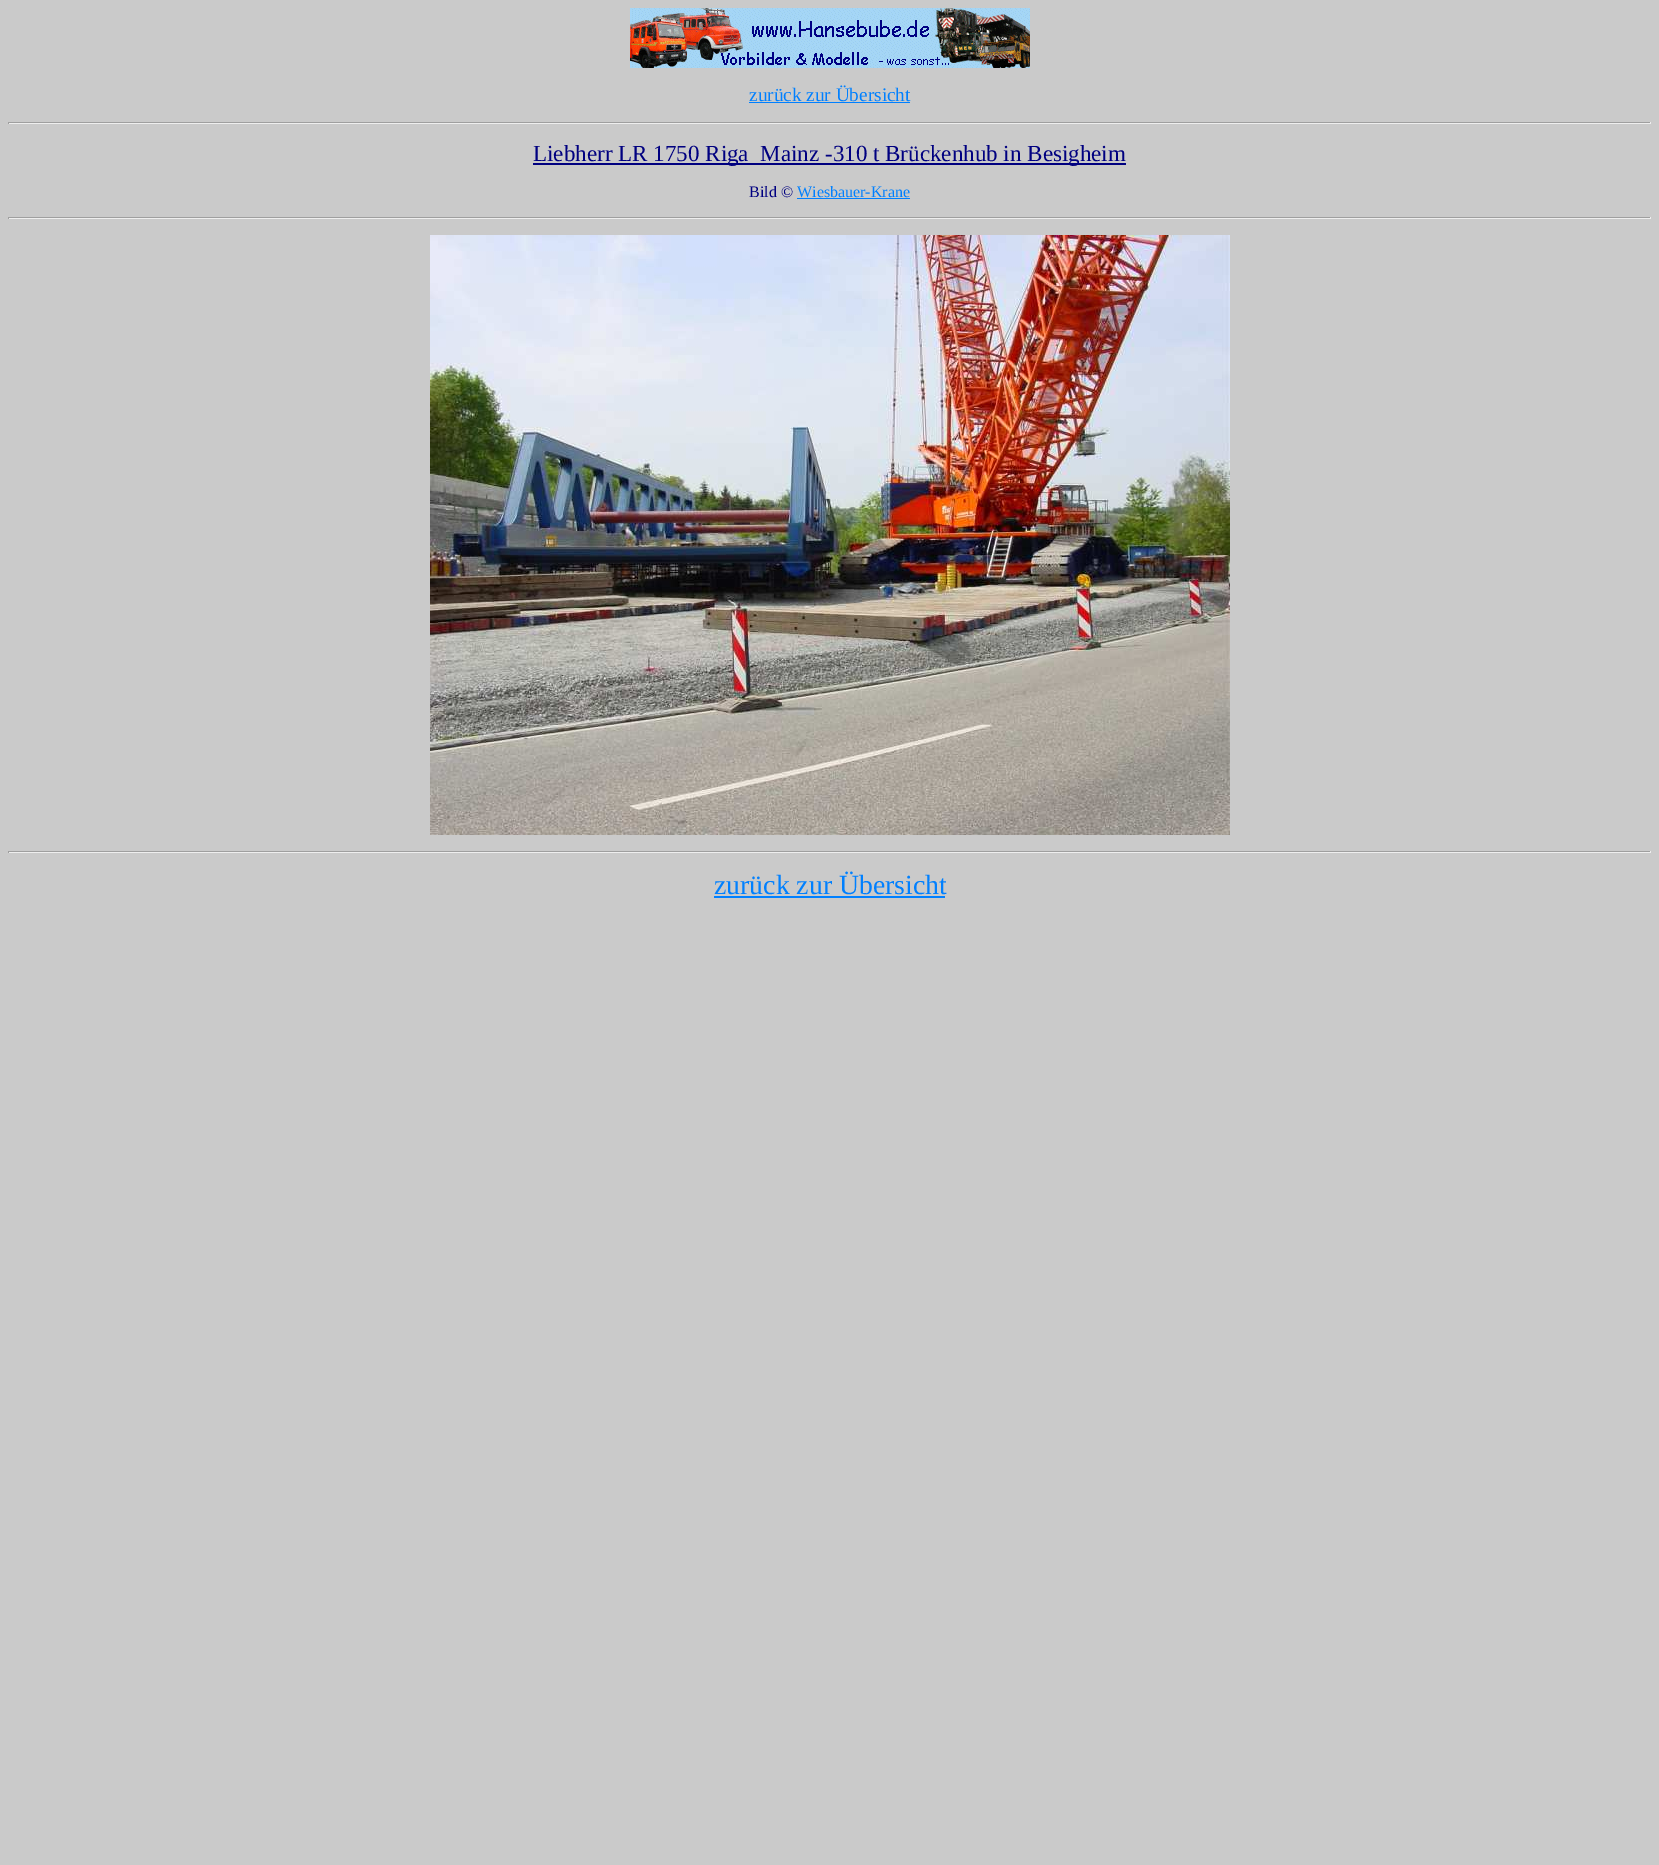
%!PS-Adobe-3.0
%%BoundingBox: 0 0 1659 1865
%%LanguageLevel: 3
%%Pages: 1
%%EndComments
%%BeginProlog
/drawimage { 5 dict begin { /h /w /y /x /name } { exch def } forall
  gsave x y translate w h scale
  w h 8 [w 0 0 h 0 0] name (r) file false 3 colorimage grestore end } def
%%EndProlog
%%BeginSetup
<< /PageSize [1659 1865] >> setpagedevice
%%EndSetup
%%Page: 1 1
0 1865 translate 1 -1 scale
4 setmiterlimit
0.792 setgray
0 0 1659 1865 rectfill
(images/1.raw) 630 8 400 60 drawimage
0 0.502 1 setrgbcolor
749 102 161 1 rectfill
0.624 setgray
8 122 1643 1 rectfill
0.933 setgray
1650 122 1 2 rectfill
8 123 1643 1 rectfill
0.624 setgray
8 122 1 2 rectfill
0 0 0.502 setrgbcolor
533 163 593 2 rectfill
0 0.502 1 setrgbcolor
797 198 113 1 rectfill
0.624 setgray
8 217 1643 1 rectfill
0.933 setgray
1650 217 1 2 rectfill
8 218 1643 1 rectfill
0.624 setgray
8 217 1 2 rectfill
(images/2.raw) 430 235 800 600 drawimage
8 851 1643 1 rectfill
0.933 setgray
1650 851 1 2 rectfill
8 852 1643 1 rectfill
0.624 setgray
8 851 1 2 rectfill
0 0.502 1 setrgbcolor
714 896 231 2 rectfill
/LiberationSerif-Regular [19.25 0 0 -19.25 0 0] selectfont
749 101 moveto (zurück zur Übersicht) show
/LiberationSerif-Regular [23.05 0 0 -23.05 0 0] selectfont
0 0 0.502 setrgbcolor
533 161 moveto (Liebherr LR 1750 Riga  Mainz -310 t Brückenhub in Besigheim) show
/LiberationSerif-Regular [16 0 0 -16 0 0] selectfont
749 197 moveto (Bild ©) show
0 0.502 1 setrgbcolor
797 197 moveto (Wiesbauer-Krane) show
/LiberationSerif-Regular [27.75 0 0 -27.75 0 0] selectfont
714 894 moveto (zurück zur Übersicht) show
showpage
%%EOF
